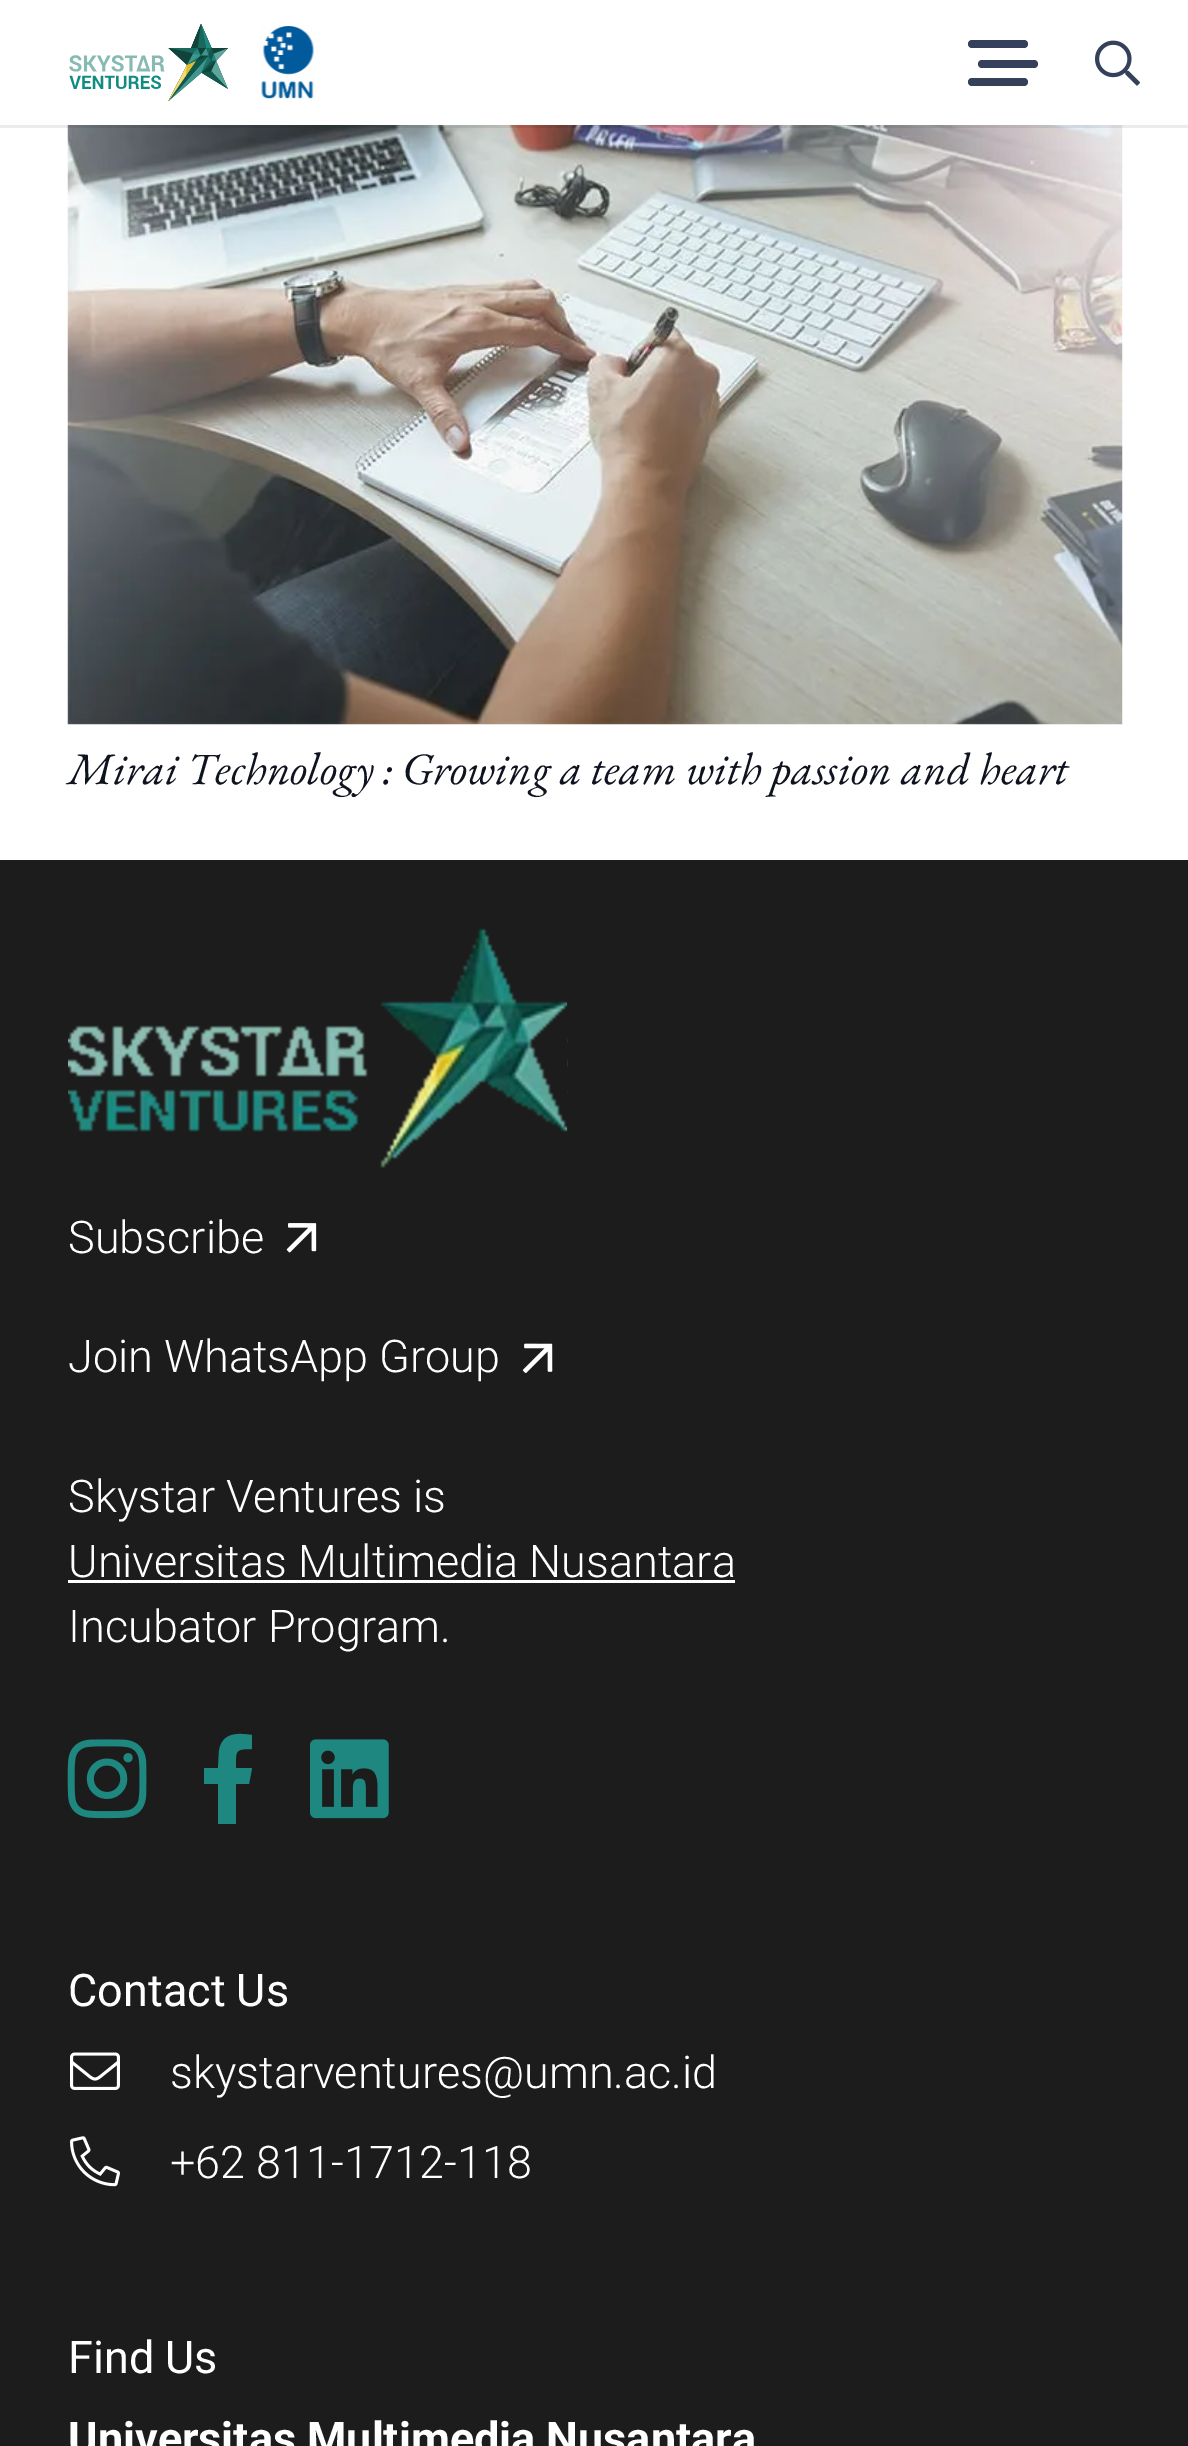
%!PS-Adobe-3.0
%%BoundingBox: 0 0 1188 2446
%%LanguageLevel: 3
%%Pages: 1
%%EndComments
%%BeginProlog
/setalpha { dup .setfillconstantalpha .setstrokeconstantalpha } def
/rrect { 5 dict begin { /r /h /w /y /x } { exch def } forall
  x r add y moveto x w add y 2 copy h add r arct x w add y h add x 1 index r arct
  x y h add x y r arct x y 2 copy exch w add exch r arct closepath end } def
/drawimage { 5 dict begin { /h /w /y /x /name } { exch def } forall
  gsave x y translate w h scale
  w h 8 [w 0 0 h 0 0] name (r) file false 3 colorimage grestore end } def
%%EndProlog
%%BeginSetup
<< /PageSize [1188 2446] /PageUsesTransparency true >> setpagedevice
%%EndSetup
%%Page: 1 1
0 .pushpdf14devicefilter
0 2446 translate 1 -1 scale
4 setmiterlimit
1 setgray
0 0 1188 2446 rectfill
(images/4.raw) 67 125 1056 600 drawimage
0.08 setalpha
0 setgray
0 125 1188 3 rectfill
1 setalpha
(images/1.raw) 69 24 159 77 drawimage
(images/2.raw) 261 26 53 73 drawimage
0.208 0.255 0.357 setrgbcolor
978 60 60 8 4 rrect fill
968 40 60 8 4 rrect fill
968 78 60 8 4 rrect fill
(images/3.raw) 1095 40 45 46 drawimage
0.11 setgray
0 860 1188 1586 rectfill
(images/5.raw) 68 928 500 241 drawimage
(images/6.raw) 286 1223 31 30 drawimage
(images/7.raw) 522 1343 31 30 drawimage
1 setgray
68 1580 667 3 rectfill
(images/8.raw) 67 1739 80 80 drawimage
0.118 0.529 0.498 setrgbcolor
newpath 249 1784 moveto 236 1784 lineto 236 1824 lineto 218 1824 lineto 218 1784 lineto 204 1784 lineto 204 1768 lineto 218 1768 lineto 219 1751 lineto 222 1732 238 1733 252 1735 curveto 252 1749 lineto 234 1749 236 1751 236 1768 curveto 252 1768 lineto closepath fill
(images/9.raw) 310 1739 79 80 drawimage
(images/10.raw) 70 2052 50 38 drawimage
(images/11.raw) 70 2136 50 51 drawimage
/EBGaramond-Italic [45 0 0 -45 0 0] selectfont
0.059 0.075 0.122 setrgbcolor
68 784 moveto (Mirai Technology : Growing a team with passion and heart) show
/Roboto-Light [45 0 0 -45 0 0] selectfont
1 setgray
68 1253 moveto (Subscribe) show
68 1372 moveto (Join WhatsApp Group) show
68 1512 moveto (Skystar Ventures is) show
68 1577 moveto (Universitas Multimedia Nusantara) show
68 1642 moveto (Incubator Program.) show
/Roboto-Regular [45 0 0 -45 0 0] selectfont
68 2006 moveto (Contact Us) show
/Roboto-Light [45 0 0 -45 0 0] selectfont
170 2088 moveto (skystarventures@umn.ac.id) show
170 2178 moveto (+62 811-1712-118) show
/Roboto-Regular [45 0 0 -45 0 0] selectfont
68 2373 moveto (Find Us) show
/Roboto-Bold [45 0 0 -45 0 0] selectfont
68 2454 moveto (Universitas Multimedia Nusantara) show
.poppdf14devicefilter showpage
%%EOF
